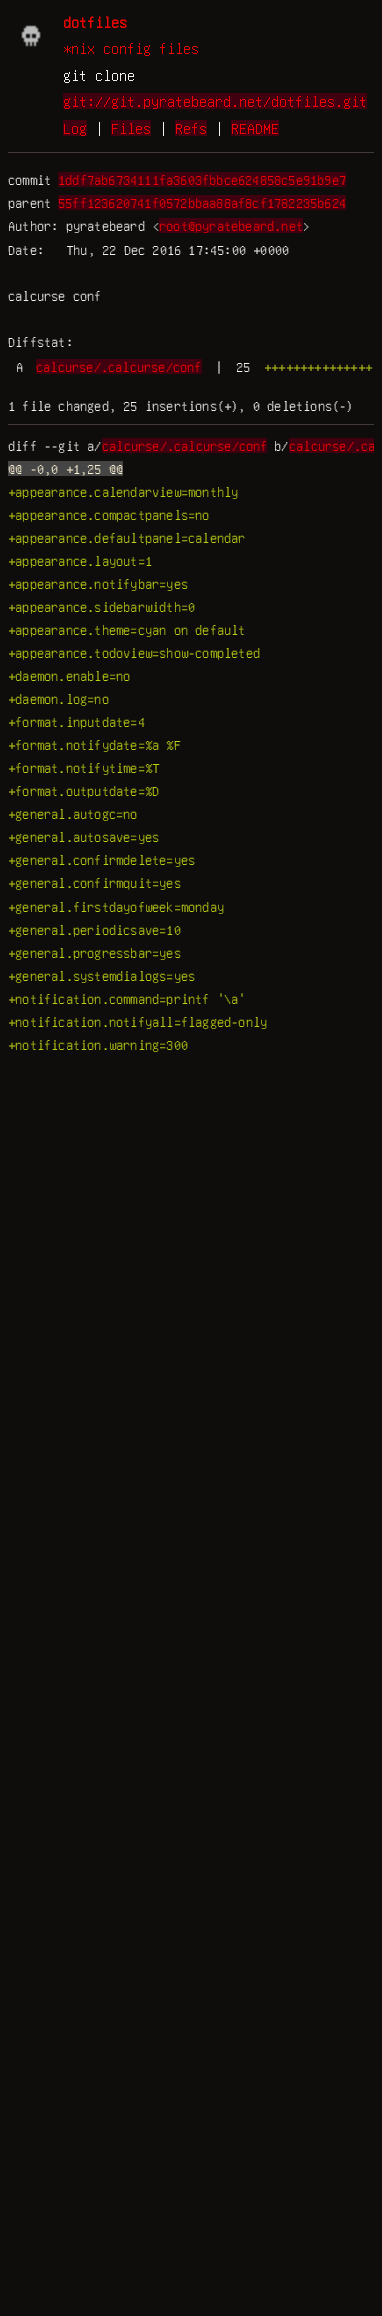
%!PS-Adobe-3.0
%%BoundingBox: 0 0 382 2316
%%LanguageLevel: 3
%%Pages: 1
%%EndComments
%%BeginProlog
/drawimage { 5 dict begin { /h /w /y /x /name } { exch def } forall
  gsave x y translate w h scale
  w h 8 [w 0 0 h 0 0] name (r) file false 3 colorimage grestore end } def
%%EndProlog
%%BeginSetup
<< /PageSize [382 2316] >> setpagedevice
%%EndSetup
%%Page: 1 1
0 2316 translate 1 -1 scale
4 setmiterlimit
0.055 0.051 0.043 setrgbcolor
0 0 382 2316 rectfill
(images/1.raw) 21 25 20 22 drawimage
0.251 0 0.059 setrgbcolor
63 93 304 16 rectfill
63 120 24 16 rectfill
111 120 40 16 rectfill
175 120 32 16 rectfill
231 120 48 16 rectfill
0.267 0.224 0.235 setrgbcolor
8 152 366 1 rectfill
0.251 0 0.059 setrgbcolor
58 172 288 15 rectfill
58 195 288 15 rectfill
159 218 144 15 rectfill
36 359 166 15 rectfill
0.267 0.224 0.235 setrgbcolor
8 424 366 1 rectfill
0.251 0 0.059 setrgbcolor
102 438 165 15 rectfill
289 438 85 15 rectfill
0.271 setgray
8 461 115 15 rectfill
/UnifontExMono-Bold [16 0 0 -16 0 0] selectfont
0.925 0.016 0.008 setrgbcolor
63 28 moveto (dotfiles) show
/UnifontExMono-Medium [16 0 0 -16 0 0] selectfont
63 54 moveto (*nix config files) show
0.953 0.945 0.937 setrgbcolor
63 81 moveto (git clone) show
0.957 0 0.016 setrgbcolor
63 107 moveto (git://git.pyratebeard.net/dotfiles.git) show
63 134 moveto (Log) show
0.953 0.945 0.937 setrgbcolor
95 134 moveto (|) show
0.957 0 0.016 setrgbcolor
111 134 moveto (Files) show
0.953 0.945 0.937 setrgbcolor
159 134 moveto (|) show
0.957 0 0.016 setrgbcolor
175 134 moveto (Refs) show
0.953 0.945 0.937 setrgbcolor
215 134 moveto (|) show
0.957 0 0.016 setrgbcolor
231 134 moveto (README) show
/UnifontExMono-Medium [14.4 0 0 -14.4 0 0] selectfont
0.953 0.945 0.937 setrgbcolor
8 185 moveto (commit) show
0.957 0 0.016 setrgbcolor
58 185 moveto (1ddf7ab6734111fa3603fbbce624858c5e91b9e7) show
0.953 0.945 0.937 setrgbcolor
8 208 moveto (parent) show
0.957 0 0.016 setrgbcolor
58 208 moveto (55ff123620741f0572bbaa88af8cf1782235b624) show
0.953 0.945 0.937 setrgbcolor
8 231 moveto (Author: pyratebeard <) show
0.957 0 0.016 setrgbcolor
159 231 moveto (root@pyratebeard.net) show
0.953 0.945 0.937 setrgbcolor
303 231 moveto (>) show
8 255 moveto (Date:) show
66 255 moveto (Thu, 22 Dec 2016 17:45:00 +0000) show
8 301 moveto (calcurse conf) show
8 347 moveto (Diffstat:) show
16 372 moveto (A) show
0.957 0 0.016 setrgbcolor
36 372 moveto (calcurse/.calcurse/conf) show
0.953 0.945 0.937 setrgbcolor
215 372 moveto (|) show
236 372 moveto (25) show
0.741 0.812 0.082 setrgbcolor
264 372 moveto (+++++++++++++++) show
0.953 0.945 0.937 setrgbcolor
8 411 moveto (1 file changed, 25 insertions\(+\), 0 deletions\(-\)) show
8 451 moveto (diff --git a/) show
0.957 0 0.016 setrgbcolor
102 451 moveto (calcurse/.calcurse/conf) show
0.953 0.945 0.937 setrgbcolor
274 451 moveto (b/) show
gsave
8 394 366 662 rectclip
0.957 0 0.016 setrgbcolor
289 451 moveto (calcurse/.ca) show
grestore
0.984 0.941 0.824 setrgbcolor
8 474 moveto (@@ -0,0 +1,25 @@) show
0.741 0.812 0.082 setrgbcolor
8 497 moveto (+appearance.calendarview=monthly) show
8 520 moveto (+appearance.compactpanels=no) show
8 543 moveto (+appearance.defaultpanel=calendar) show
8 566 moveto (+appearance.layout=1) show
8 589 moveto (+appearance.notifybar=yes) show
8 612 moveto (+appearance.sidebarwidth=0) show
8 635 moveto (+appearance.theme=cyan on default) show
8 658 moveto (+appearance.todoview=show-completed) show
8 681 moveto (+daemon.enable=no) show
8 704 moveto (+daemon.log=no) show
8 727 moveto (+format.inputdate=4) show
8 750 moveto (+format.notifydate=%a %F) show
8 773 moveto (+format.notifytime=%T) show
8 796 moveto (+format.outputdate=%D) show
8 819 moveto (+general.autogc=no) show
8 842 moveto (+general.autosave=yes) show
8 865 moveto (+general.confirmdelete=yes) show
8 888 moveto (+general.confirmquit=yes) show
8 912 moveto (+general.firstdayofweek=monday) show
8 935 moveto (+general.periodicsave=10) show
8 958 moveto (+general.progressbar=yes) show
8 981 moveto (+general.systemdialogs=yes) show
8 1004 moveto (+notification.command=printf '\\a') show
8 1027 moveto (+notification.notifyall=flagged-only) show
8 1050 moveto (+notification.warning=300) show
showpage
%%EOF
